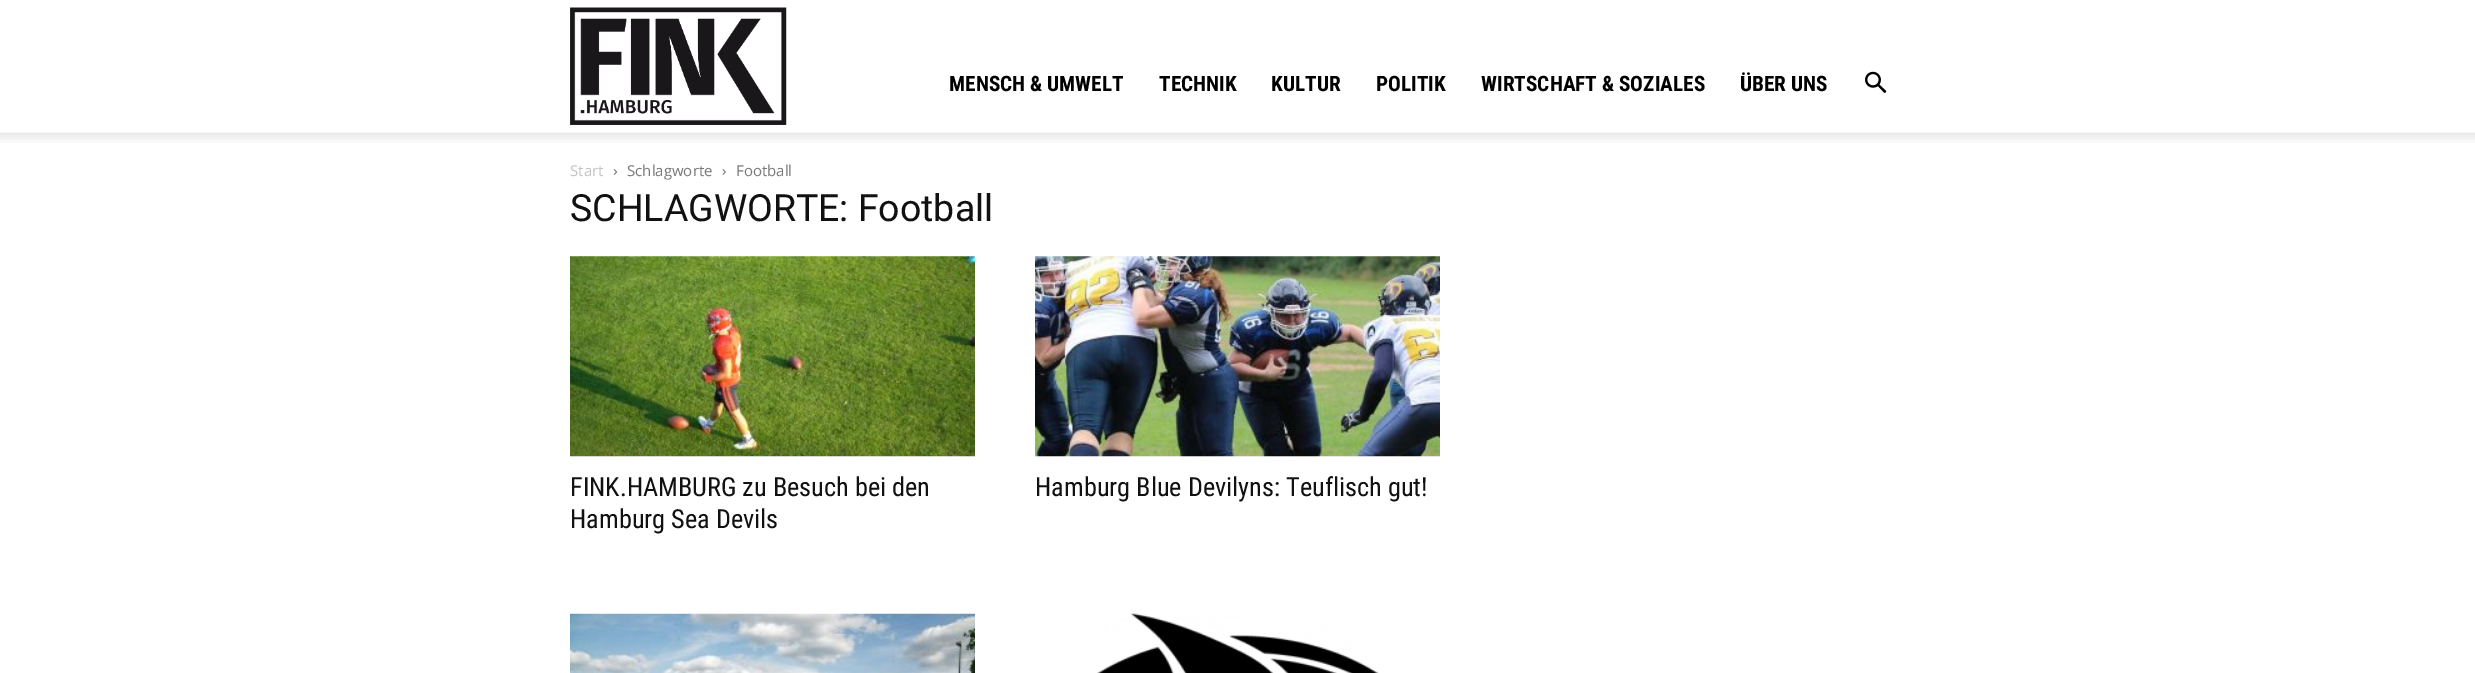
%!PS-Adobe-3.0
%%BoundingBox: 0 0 2475 673
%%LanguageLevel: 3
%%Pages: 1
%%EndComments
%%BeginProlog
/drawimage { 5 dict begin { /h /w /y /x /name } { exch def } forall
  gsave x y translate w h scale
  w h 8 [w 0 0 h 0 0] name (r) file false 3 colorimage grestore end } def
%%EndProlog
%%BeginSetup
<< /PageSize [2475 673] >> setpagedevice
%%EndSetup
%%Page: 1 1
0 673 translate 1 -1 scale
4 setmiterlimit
1 setgray
0 0 2475 673 rectfill
(images/1.raw) 570 7 217 118 drawimage
(images/2.raw) 1865 71 22 22 drawimage
(images/3.raw) 0 132 2475 11 drawimage
(images/4.raw) 613 169 5 6 drawimage
(images/5.raw) 722 169 4 6 drawimage
(images/6.raw) 570 256 405 201 drawimage
(images/7.raw) 1035 256 405 201 drawimage
(images/8.raw) 570 613 405 60 drawimage
(images/9.raw) 1097 613 282 60 drawimage
/RobotoCondensed-Bold [21.25 0 0 -21.25 0 0] selectfont
0 setgray
949 91 moveto (MENSCH & UMWELT) show
1159 91 moveto (TECHNIK) show
1271 91 moveto (KULTUR) show
1376 91 moveto (POLITIK) show
1481 91 moveto (WIRTSCHAFT & SOZIALES) show
1740 91 moveto (ÜBER UNS) show
/OpenSans-Regular [15 0 0 -15 0 0] selectfont
0.765 setgray
570 176 moveto (Start) show
0.467 setgray
627 176 moveto (Schlagworte) show
736 176 moveto (Football) show
/Roboto-Regular [37.5 0 0 -37.5 0 0] selectfont
0.067 setgray
570 221 moveto (SCHLAGWORTE: Football) show
/RobotoCondensed-Regular [26.25 0 0 -26.25 0 0] selectfont
570 496 moveto (FINK.HAMBURG zu Besuch bei den) show
570 528 moveto (Hamburg Sea Devils) show
1035 496 moveto (Hamburg Blue Devilyns: Teuflisch gut!) show
showpage
%%EOF
